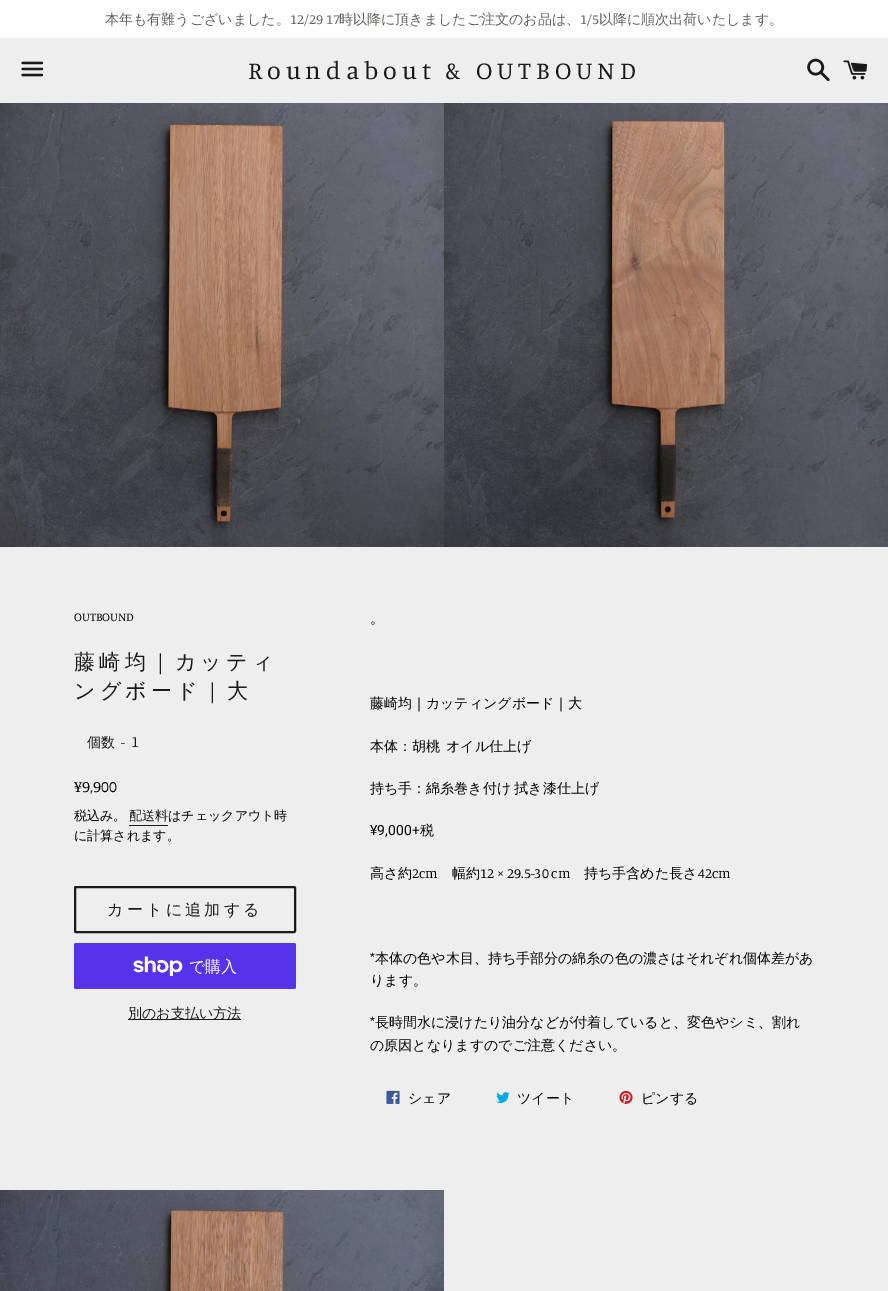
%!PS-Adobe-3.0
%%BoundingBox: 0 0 888 1291
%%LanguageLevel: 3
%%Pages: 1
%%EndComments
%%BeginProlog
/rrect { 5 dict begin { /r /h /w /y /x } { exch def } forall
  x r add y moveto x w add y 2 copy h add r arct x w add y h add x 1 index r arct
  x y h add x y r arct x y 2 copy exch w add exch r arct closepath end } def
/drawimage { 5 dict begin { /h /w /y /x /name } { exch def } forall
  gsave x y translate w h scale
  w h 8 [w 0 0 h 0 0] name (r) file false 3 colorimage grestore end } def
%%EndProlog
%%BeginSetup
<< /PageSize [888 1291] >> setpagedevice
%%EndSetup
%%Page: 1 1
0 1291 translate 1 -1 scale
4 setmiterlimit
0.933 setgray
0 0 888 1291 rectfill
1 setgray
0 0 888 38 rectfill
(images/1.raw) 21 61 23 16 drawimage
(images/2.raw) 807 58 23 24 drawimage
(images/3.raw) 843 60 25 20 drawimage
(images/4.raw) 0 103 444 444 drawimage
(images/5.raw) 444 103 444 444 drawimage
0.102 setgray
129 825 39 1 rectfill
2 setlinewidth
75 887 220 45 1 rrect stroke
0.329 0.2 0.922 setrgbcolor
74 943 222 46 2 rrect fill
(images/6.raw) 133 956 50 20 drawimage
0.102 setgray
128 1019 113 1 rectfill
(images/7.raw) 386 1090 14 14 drawimage
(images/8.raw) 496 1092 14 11 drawimage
(images/9.raw) 619 1090 14 14 drawimage
(images/10.raw) 0 1190 444 101 drawimage
/WenQuanYiZenHei-Medium [14 0 0 -14 0 0] selectfont
0.4 0.373 0.373 setrgbcolor
105 24 moveto (本年も有難うございました。) show
/Manuale-Regular [14 0 0 -14 0 0] selectfont
290 24 moveto (12/29 17) show
/WenQuanYiZenHei-Medium [14 0 0 -14 0 0] selectfont
339 24 moveto (時以降に頂きましたご注文のお品は、) show
/Manuale-Regular [14 0 0 -14 0 0] selectfont
580 24 moveto (1/5) show
/WenQuanYiZenHei-Medium [14 0 0 -14 0 0] selectfont
599 24 moveto (以降に順次出荷いたします。) show
/Manuale-Regular [25 0 0 -25 0 0] selectfont
0.102 setgray
248 79 moveto 5 0 (Roundabout & OUTBOUND) ashow
/Manuale-Regular [12 0 0 -12 0 0] selectfont
0 setgray
74 621 moveto (OUTBOUND) show
/WenQuanYiZenHei-Medium [21 0 0 -21 0 0] selectfont
0.102 setgray
74 669 moveto 4.25 0 (藤崎均｜カッティ) ashow
74 698 moveto 4.25 0 (ングボード｜大) ashow
/WenQuanYiZenHei-Medium [14 0 0 -14 0 0] selectfont
87 747 moveto (個数) show
/Manuale-Regular [14 0 0 -14 0 0] selectfont
121 747 moveto (-) show
/Manuale-Regular [16 0 0 -16 0 0] selectfont
131 747 moveto (1) show
0 setgray
74 792 moveto (¥9,900) show
/WenQuanYiZenHei-Medium [13 0 0 -13 0 0] selectfont
74 820 moveto (税込み。) show
0.102 setgray
129 820 moveto (配送料) show
0 setgray
168 820 moveto (はチェックアウト時) show
74 840 moveto (に計算されます。) show
/WenQuanYiZenHei-Medium [16 0 0 -16 0 0] selectfont
0.102 setgray
107 915 moveto 3.25 0 (カートに追加する) ashow
1 setgray
189 972 moveto (で購入) show
/WenQuanYiZenHei-Medium [14 0 0 -14 0 0] selectfont
0.102 setgray
128 1018 moveto (別のお支払い方法) show
0 setgray
370 623 moveto (。) show
370 708 moveto (藤崎均｜カッティングボード｜大) show
370 751 moveto (本体：胡桃) show
446 751 moveto (オイル仕上げ) show
370 793 moveto -1 0 32 (持ち手：綿糸巻き付け 拭き漆仕上げ) widthshow
/Roboto-Regular [14 0 0 -14 0 0] selectfont
370 835 moveto (¥9,000+) show
/WenQuanYiZenHei-Medium [14 0 0 -14 0 0] selectfont
420 835 moveto (税) show
370 878 moveto (高さ約) show
/Manuale-Regular [14 0 0 -14 0 0] selectfont
412 878 moveto (2cm) show
/WenQuanYiZenHei-Medium [14 0 0 -14 0 0] selectfont
452 878 moveto (幅約) show
/Manuale-Regular [14 0 0 -14 0 0] selectfont
480 878 moveto (12 × 29.5-30 cm) show
/WenQuanYiZenHei-Medium [14 0 0 -14 0 0] selectfont
584 878 moveto (持ち手含めた長さ) show
/Manuale-Regular [14 0 0 -14 0 0] selectfont
698 878 moveto (42cm) show
370 963 moveto (*) show
/WenQuanYiZenHei-Medium [14 0 0 -14 0 0] selectfont
375 963 moveto (本体の色や木目、持ち手部分の綿糸の色の濃さはそれぞれ個体差があ) show
370 985 moveto (ります。) show
/Manuale-Regular [14 0 0 -14 0 0] selectfont
370 1027 moveto (*) show
/WenQuanYiZenHei-Medium [14 0 0 -14 0 0] selectfont
375 1027 moveto (長時間水に浸けたり油分などが付着していると、変色やシミ、割れ) show
370 1050 moveto (の原因となりますのでご注意ください。) show
408 1103 moveto (シェア) show
517 1103 moveto (ツイート) show
641 1103 moveto (ピンする) show
showpage
%%EOF
